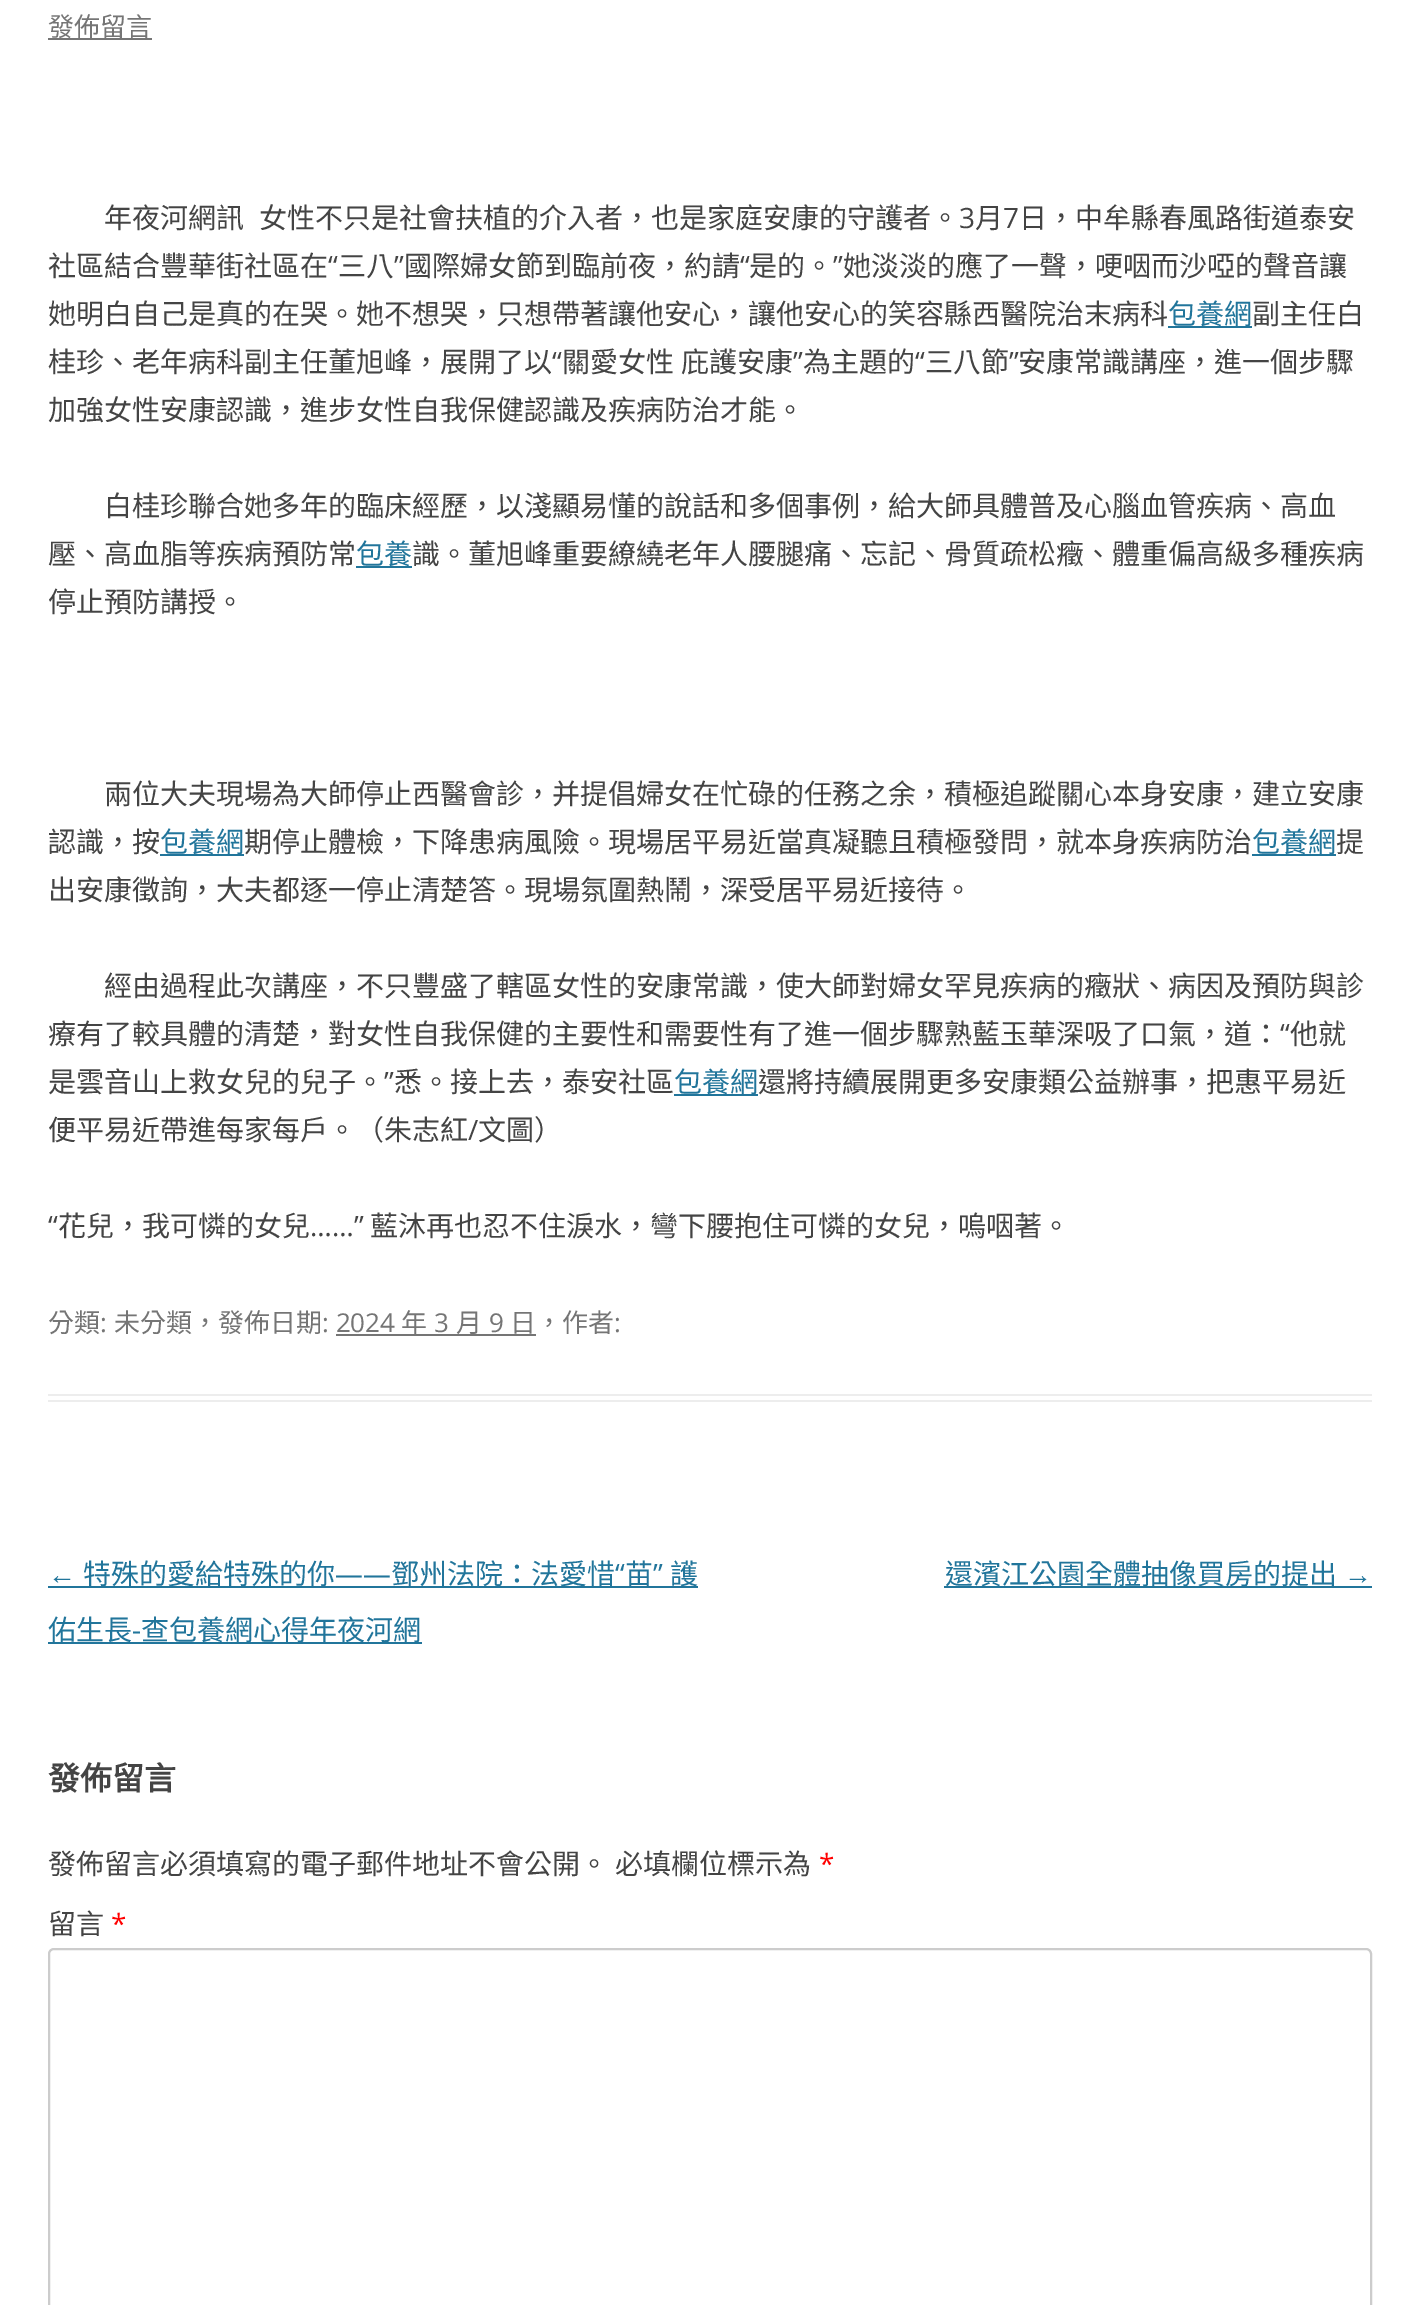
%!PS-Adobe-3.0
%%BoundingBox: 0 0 1419 2305
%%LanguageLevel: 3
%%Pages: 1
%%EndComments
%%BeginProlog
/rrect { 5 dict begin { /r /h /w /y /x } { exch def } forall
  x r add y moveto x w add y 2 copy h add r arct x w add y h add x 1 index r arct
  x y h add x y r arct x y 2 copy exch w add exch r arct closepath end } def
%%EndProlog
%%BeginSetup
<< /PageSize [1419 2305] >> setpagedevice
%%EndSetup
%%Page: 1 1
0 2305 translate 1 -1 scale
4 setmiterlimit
1 setgray
0 0 1419 2305 rectfill
0.929 setgray
48 1394 1324 2 rectfill
48 1400 1324 2 rectfill
0.459 setgray
48 38 104 2 rectfill
0.129 0.459 0.608 setrgbcolor
1168 326 84 2 rectfill
356 566 56 2 rectfill
160 854 84 2 rectfill
1252 854 84 2 rectfill
674 1094 84 2 rectfill
0.459 setgray
336 1334 200 2 rectfill
0.129 0.459 0.608 setrgbcolor
48 1586 650 2 rectfill
48 1642 374 2 rectfill
944 1586 428 2 rectfill
0.8 setgray
2 setlinewidth
49 1949 1322 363 5 rrect stroke
/NotoSansCJKTC-Regular [26 0 0 -26 0 0] selectfont
0.459 setgray
48 36 moveto (發佈留言) show
/NotoSansCJKTC-Regular [28 0 0 -28 0 0] selectfont
0.267 setgray
104 228 moveto (年夜河網訊) show
259 228 moveto (女性不只是社會扶植的介入者，也是家庭安康的守護者。) show
/OpenSans-Regular [28 0 0 -28 0 0] selectfont
959 228 moveto (3) show
/NotoSansCJKTC-Regular [28 0 0 -28 0 0] selectfont
975 228 moveto (月) show
/OpenSans-Regular [28 0 0 -28 0 0] selectfont
1003 228 moveto (7) show
/NotoSansCJKTC-Regular [28 0 0 -28 0 0] selectfont
1019 228 moveto (日，中牟縣春風路街道泰安) show
48 276 moveto (社區結合豐華街社區在) show
/OpenSans-Regular [28 0 0 -28 0 0] selectfont
328 276 moveto (“) show
/NotoSansCJKTC-Regular [28 0 0 -28 0 0] selectfont
338 276 moveto (三八) show
/OpenSans-Regular [28 0 0 -28 0 0] selectfont
394 276 moveto (”) show
/NotoSansCJKTC-Regular [28 0 0 -28 0 0] selectfont
404 276 moveto (國際婦女節到臨前夜，約請) show
/OpenSans-Regular [28 0 0 -28 0 0] selectfont
740 276 moveto (“) show
/NotoSansCJKTC-Regular [28 0 0 -28 0 0] selectfont
749 276 moveto (是的。) show
/OpenSans-Regular [28 0 0 -28 0 0] selectfont
833 276 moveto (”) show
/NotoSansCJKTC-Regular [28 0 0 -28 0 0] selectfont
843 276 moveto (她淡淡的應了一聲，哽咽而沙啞的聲音讓) show
48 324 moveto (她明白自己是真的在哭。她不想哭，只想帶著讓他安心，讓他安心的笑容縣西醫院治末病科) show
0.129 0.459 0.608 setrgbcolor
1168 324 moveto (包養網) show
0.267 setgray
1252 324 moveto (副主任白) show
48 372 moveto (桂珍、老年病科副主任董旭峰，展開了以) show
/OpenSans-Regular [28 0 0 -28 0 0] selectfont
552 372 moveto (“) show
/NotoSansCJKTC-Regular [28 0 0 -28 0 0] selectfont
562 372 moveto 1 0 32 (關愛女性 庇護安康) widthshow
/OpenSans-Regular [28 0 0 -28 0 0] selectfont
793 372 moveto (”) show
/NotoSansCJKTC-Regular [28 0 0 -28 0 0] selectfont
803 372 moveto (為主題的) show
/OpenSans-Regular [28 0 0 -28 0 0] selectfont
915 372 moveto (“) show
/NotoSansCJKTC-Regular [28 0 0 -28 0 0] selectfont
925 372 moveto (三八節) show
/OpenSans-Regular [28 0 0 -28 0 0] selectfont
1009 372 moveto (”) show
/NotoSansCJKTC-Regular [28 0 0 -28 0 0] selectfont
1018 372 moveto (安康常識講座，進一個步驟) show
48 420 moveto (加強女性安康認識，進步女性自我保健認識及疾病防治才能。) show
104 516 moveto (白桂珍聯合她多年的臨床經歷，以淺顯易懂的說話和多個事例，給大師具體普及心腦血管疾病、高血) show
48 564 moveto (壓、高血脂等疾病預防常) show
0.129 0.459 0.608 setrgbcolor
356 564 moveto (包養) show
0.267 setgray
412 564 moveto (識。董旭峰重要繚繞老年人腰腿痛、忘記、骨質疏松癥、體重偏高級多種疾病) show
48 612 moveto (停止預防講授。) show
104 804 moveto (兩位大夫現場為大師停止西醫會診，并提倡婦女在忙碌的任務之余，積極追蹤關心本身安康，建立安康) show
48 852 moveto (認識，按) show
0.129 0.459 0.608 setrgbcolor
160 852 moveto (包養網) show
0.267 setgray
244 852 moveto (期停止體檢，下降患病風險。現場居平易近當真凝聽且積極發問，就本身疾病防治) show
0.129 0.459 0.608 setrgbcolor
1252 852 moveto (包養網) show
0.267 setgray
1336 852 moveto (提) show
48 900 moveto (出安康徵詢，大夫都逐一停止清楚答。現場氛圍熱鬧，深受居平易近接待。) show
104 996 moveto (經由過程此次講座，不只豐盛了轄區女性的安康常識，使大師對婦女罕見疾病的癥狀、病因及預防與診) show
48 1044 moveto (療有了較具體的清楚，對女性自我保健的主要性和需要性有了進一個步驟熟藍玉華深吸了口氣，道：) show
/OpenSans-Regular [28 0 0 -28 0 0] selectfont
1280 1044 moveto (“) show
/NotoSansCJKTC-Regular [28 0 0 -28 0 0] selectfont
1290 1044 moveto (他就) show
48 1092 moveto (是雲音山上救女兒的兒子。) show
/OpenSans-Regular [28 0 0 -28 0 0] selectfont
384 1092 moveto (”) show
/NotoSansCJKTC-Regular [28 0 0 -28 0 0] selectfont
394 1092 moveto (悉。接上去，泰安社區) show
0.129 0.459 0.608 setrgbcolor
674 1092 moveto (包養網) show
0.267 setgray
758 1092 moveto (還將持續展開更多安康類公益辦事，把惠平易近) show
48 1140 moveto (便平易近帶進每家每戶。（朱志紅) show
/OpenSans-Regular [28 0 0 -28 0 0] selectfont
468 1140 moveto (/) show
/NotoSansCJKTC-Regular [28 0 0 -28 0 0] selectfont
478 1140 moveto (文圖）) show
/OpenSans-Regular [28 0 0 -28 0 0] selectfont
48 1236 moveto (“) show
/NotoSansCJKTC-Regular [28 0 0 -28 0 0] selectfont
58 1236 moveto (花兒，我可憐的女兒) show
/OpenSans-Regular [28 0 0 -28 0 0] selectfont
310 1236 moveto (……”) show
/NotoSansCJKTC-Regular [28 0 0 -28 0 0] selectfont
370 1236 moveto (藍沐再也忍不住淚水，彎下腰抱住可憐的女兒，嗚咽著。) show
/NotoSansCJKTC-Regular [26 0 0 -26 0 0] selectfont
0.459 setgray
48 1332 moveto (分類) show
/OpenSans-Regular [26 0 0 -26 0 0] selectfont
100 1332 moveto (:) show
/NotoSansCJKTC-Regular [26 0 0 -26 0 0] selectfont
114 1332 moveto (未分類，發佈日期) show
/OpenSans-Regular [26 0 0 -26 0 0] selectfont
322 1332 moveto (: 2024) show
/NotoSansCJKTC-Regular [26 0 0 -26 0 0] selectfont
401 1332 moveto (年) show
/OpenSans-Regular [26 0 0 -26 0 0] selectfont
434 1332 moveto (3) show
/NotoSansCJKTC-Regular [26 0 0 -26 0 0] selectfont
456 1332 moveto (月) show
/OpenSans-Regular [26 0 0 -26 0 0] selectfont
489 1332 moveto (9) show
/NotoSansCJKTC-Regular [26 0 0 -26 0 0] selectfont
510 1332 moveto (日，作者) show
/OpenSans-Regular [26 0 0 -26 0 0] selectfont
614 1332 moveto (:) show
/NotoSansCJKTC-Regular [28 0 0 -28 0 0] selectfont
0.129 0.459 0.608 setrgbcolor
83 1584 moveto (特殊的愛給特殊的你) show
391 1584 moveto (鄧州法院：法愛惜) show
/OpenSans-Regular [28 0 0 -28 0 0] selectfont
615 1584 moveto (“) show
/NotoSansCJKTC-Regular [28 0 0 -28 0 0] selectfont
625 1584 moveto (苗) show
/OpenSans-Regular [28 0 0 -28 0 0] selectfont
653 1584 moveto (”) show
/NotoSansCJKTC-Regular [28 0 0 -28 0 0] selectfont
670 1584 moveto (護) show
/LiberationSans-Regular [28 0 0 -28 0 0] selectfont
48 1584 moveto (←) show
/OpenSans-Regular [28 0 0 -28 0 0] selectfont
335 1584 moveto (——) show
/NotoSansCJKTC-Regular [28 0 0 -28 0 0] selectfont
48 1640 moveto (佑生長) show
/OpenSans-Regular [28 0 0 -28 0 0] selectfont
132 1640 moveto (-) show
/NotoSansCJKTC-Regular [28 0 0 -28 0 0] selectfont
141 1640 moveto (查包養網心得年夜河網) show
945 1584 moveto (還濱江公園全體抽像買房的提出) show
/LiberationSans-Regular [28 0 0 -28 0 0] selectfont
1344 1584 moveto (→) show
/NotoSansCJKTC-Bold [32 0 0 -32 0 0] selectfont
0.267 setgray
48 1790 moveto (發佈留言) show
/NotoSansCJKTC-Regular [28 0 0 -28 0 0] selectfont
48 1874 moveto (發佈留言必須填寫的電子郵件地址不會公開。) show
615 1874 moveto (必填欄位標示為) show
/OpenSans-Regular [28 0 0 -28 0 0] selectfont
1 0 0 setrgbcolor
819 1874 moveto (*) show
/NotoSansCJKTC-Regular [28 0 0 -28 0 0] selectfont
0.267 setgray
48 1934 moveto (留言) show
/OpenSans-Regular [28 0 0 -28 0 0] selectfont
1 0 0 setrgbcolor
111 1934 moveto (*) show
showpage
%%EOF
